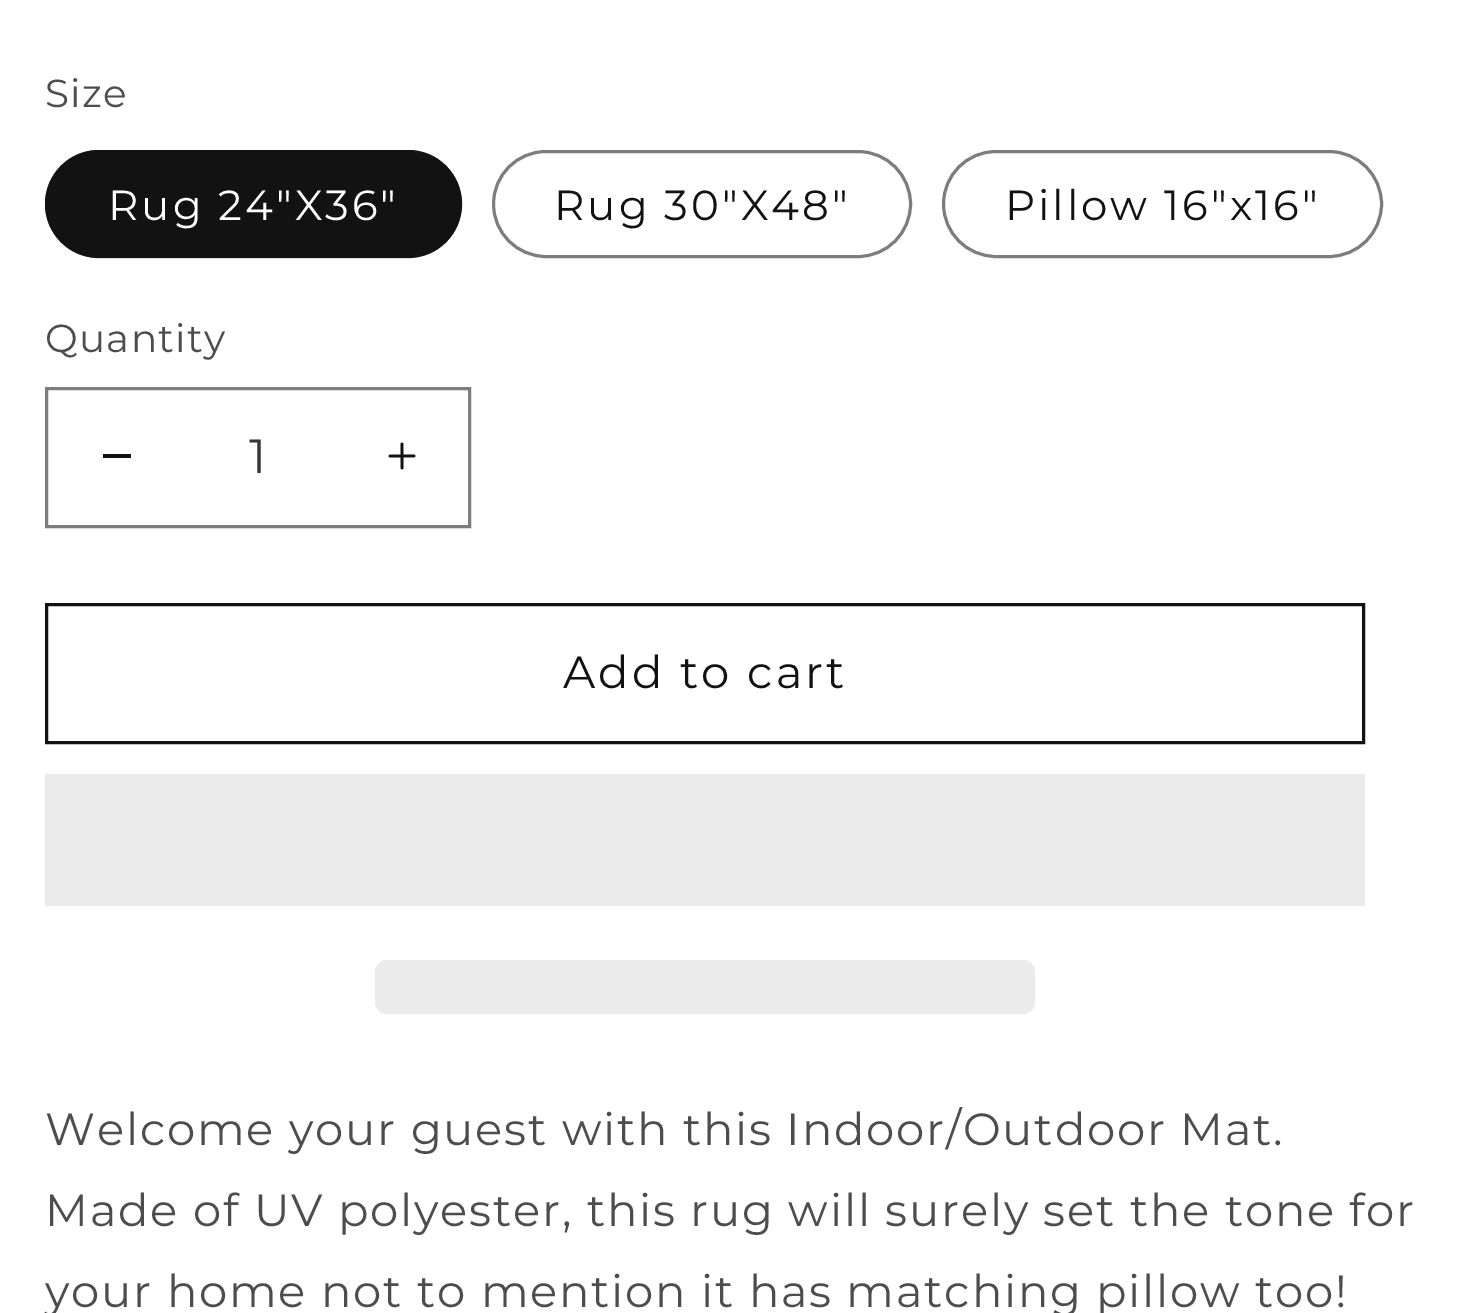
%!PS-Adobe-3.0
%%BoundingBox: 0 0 1464 1313
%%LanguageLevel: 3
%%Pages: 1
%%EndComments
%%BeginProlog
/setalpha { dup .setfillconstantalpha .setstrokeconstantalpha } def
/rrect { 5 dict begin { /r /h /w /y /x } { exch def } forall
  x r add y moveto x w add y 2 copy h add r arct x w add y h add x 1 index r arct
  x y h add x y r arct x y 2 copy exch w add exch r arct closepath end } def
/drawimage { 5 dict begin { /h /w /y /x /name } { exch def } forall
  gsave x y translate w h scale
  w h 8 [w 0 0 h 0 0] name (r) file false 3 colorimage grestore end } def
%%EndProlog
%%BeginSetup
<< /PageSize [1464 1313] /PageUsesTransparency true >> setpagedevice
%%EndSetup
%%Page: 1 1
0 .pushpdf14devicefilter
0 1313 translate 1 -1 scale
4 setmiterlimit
1 setgray
0 0 1464 1313 rectfill
0.071 setgray
45 150 417 108 54 rrect fill
0.55 setalpha
3 setlinewidth
46.5 151.5 414 105 52.5 rrect stroke
1 setalpha
0.49 setgray
493.5 151.5 417 105 52.5 rrect stroke
943.5 151.5 438 105 52.5 rrect stroke
0.071 setgray
103 454 28 4 rectfill
(images/1.raw) 388 442 28 28 drawimage
0.49 setgray
46.5 388.5 423 138 rectstroke
0.071 setgray
46.5 604.5 1317 138 rectstroke
0.922 setgray
45 774 1320 132 rectfill
375 960 660 54 12 rrect fill
/Montserrat-Regular [39 0 0 -39 0 0] selectfont
0.302 setgray
45 107 moveto 1.25 0 (Size) ashow
/Montserrat-Regular [42 0 0 -42 0 0] selectfont
1 setgray
108 220 moveto 3 0 (Rug 24"X36") ashow
0.071 setgray
554 220 moveto 3 0 (Rug 30"X48") ashow
1005 220 moveto 3 0 (Pillow 16"x16") ashow
/Montserrat-Regular [39 0 0 -39 0 0] selectfont
0.302 setgray
45 352 moveto 1.25 0 (Quantity) ashow
/Montserrat-Regular [48 0 0 -48 0 0] selectfont
0.212 setgray
249 473 moveto (1) show
/Montserrat-Regular [45 0 0 -45 0 0] selectfont
0.071 setgray
563 688 moveto 3 0 (Add to cart) ashow
0.302 setgray
45 1145 moveto 1.8 0 (Welcome your guest with this Indoor/Outdoor Mat.) ashow
45 1226 moveto 1.8 0 (Made of UV polyester, this rug will surely set the tone for) ashow
45 1307 moveto 1.8 0 (your home not to mention it has matching pillow too!) ashow
.poppdf14devicefilter showpage
%%EOF
